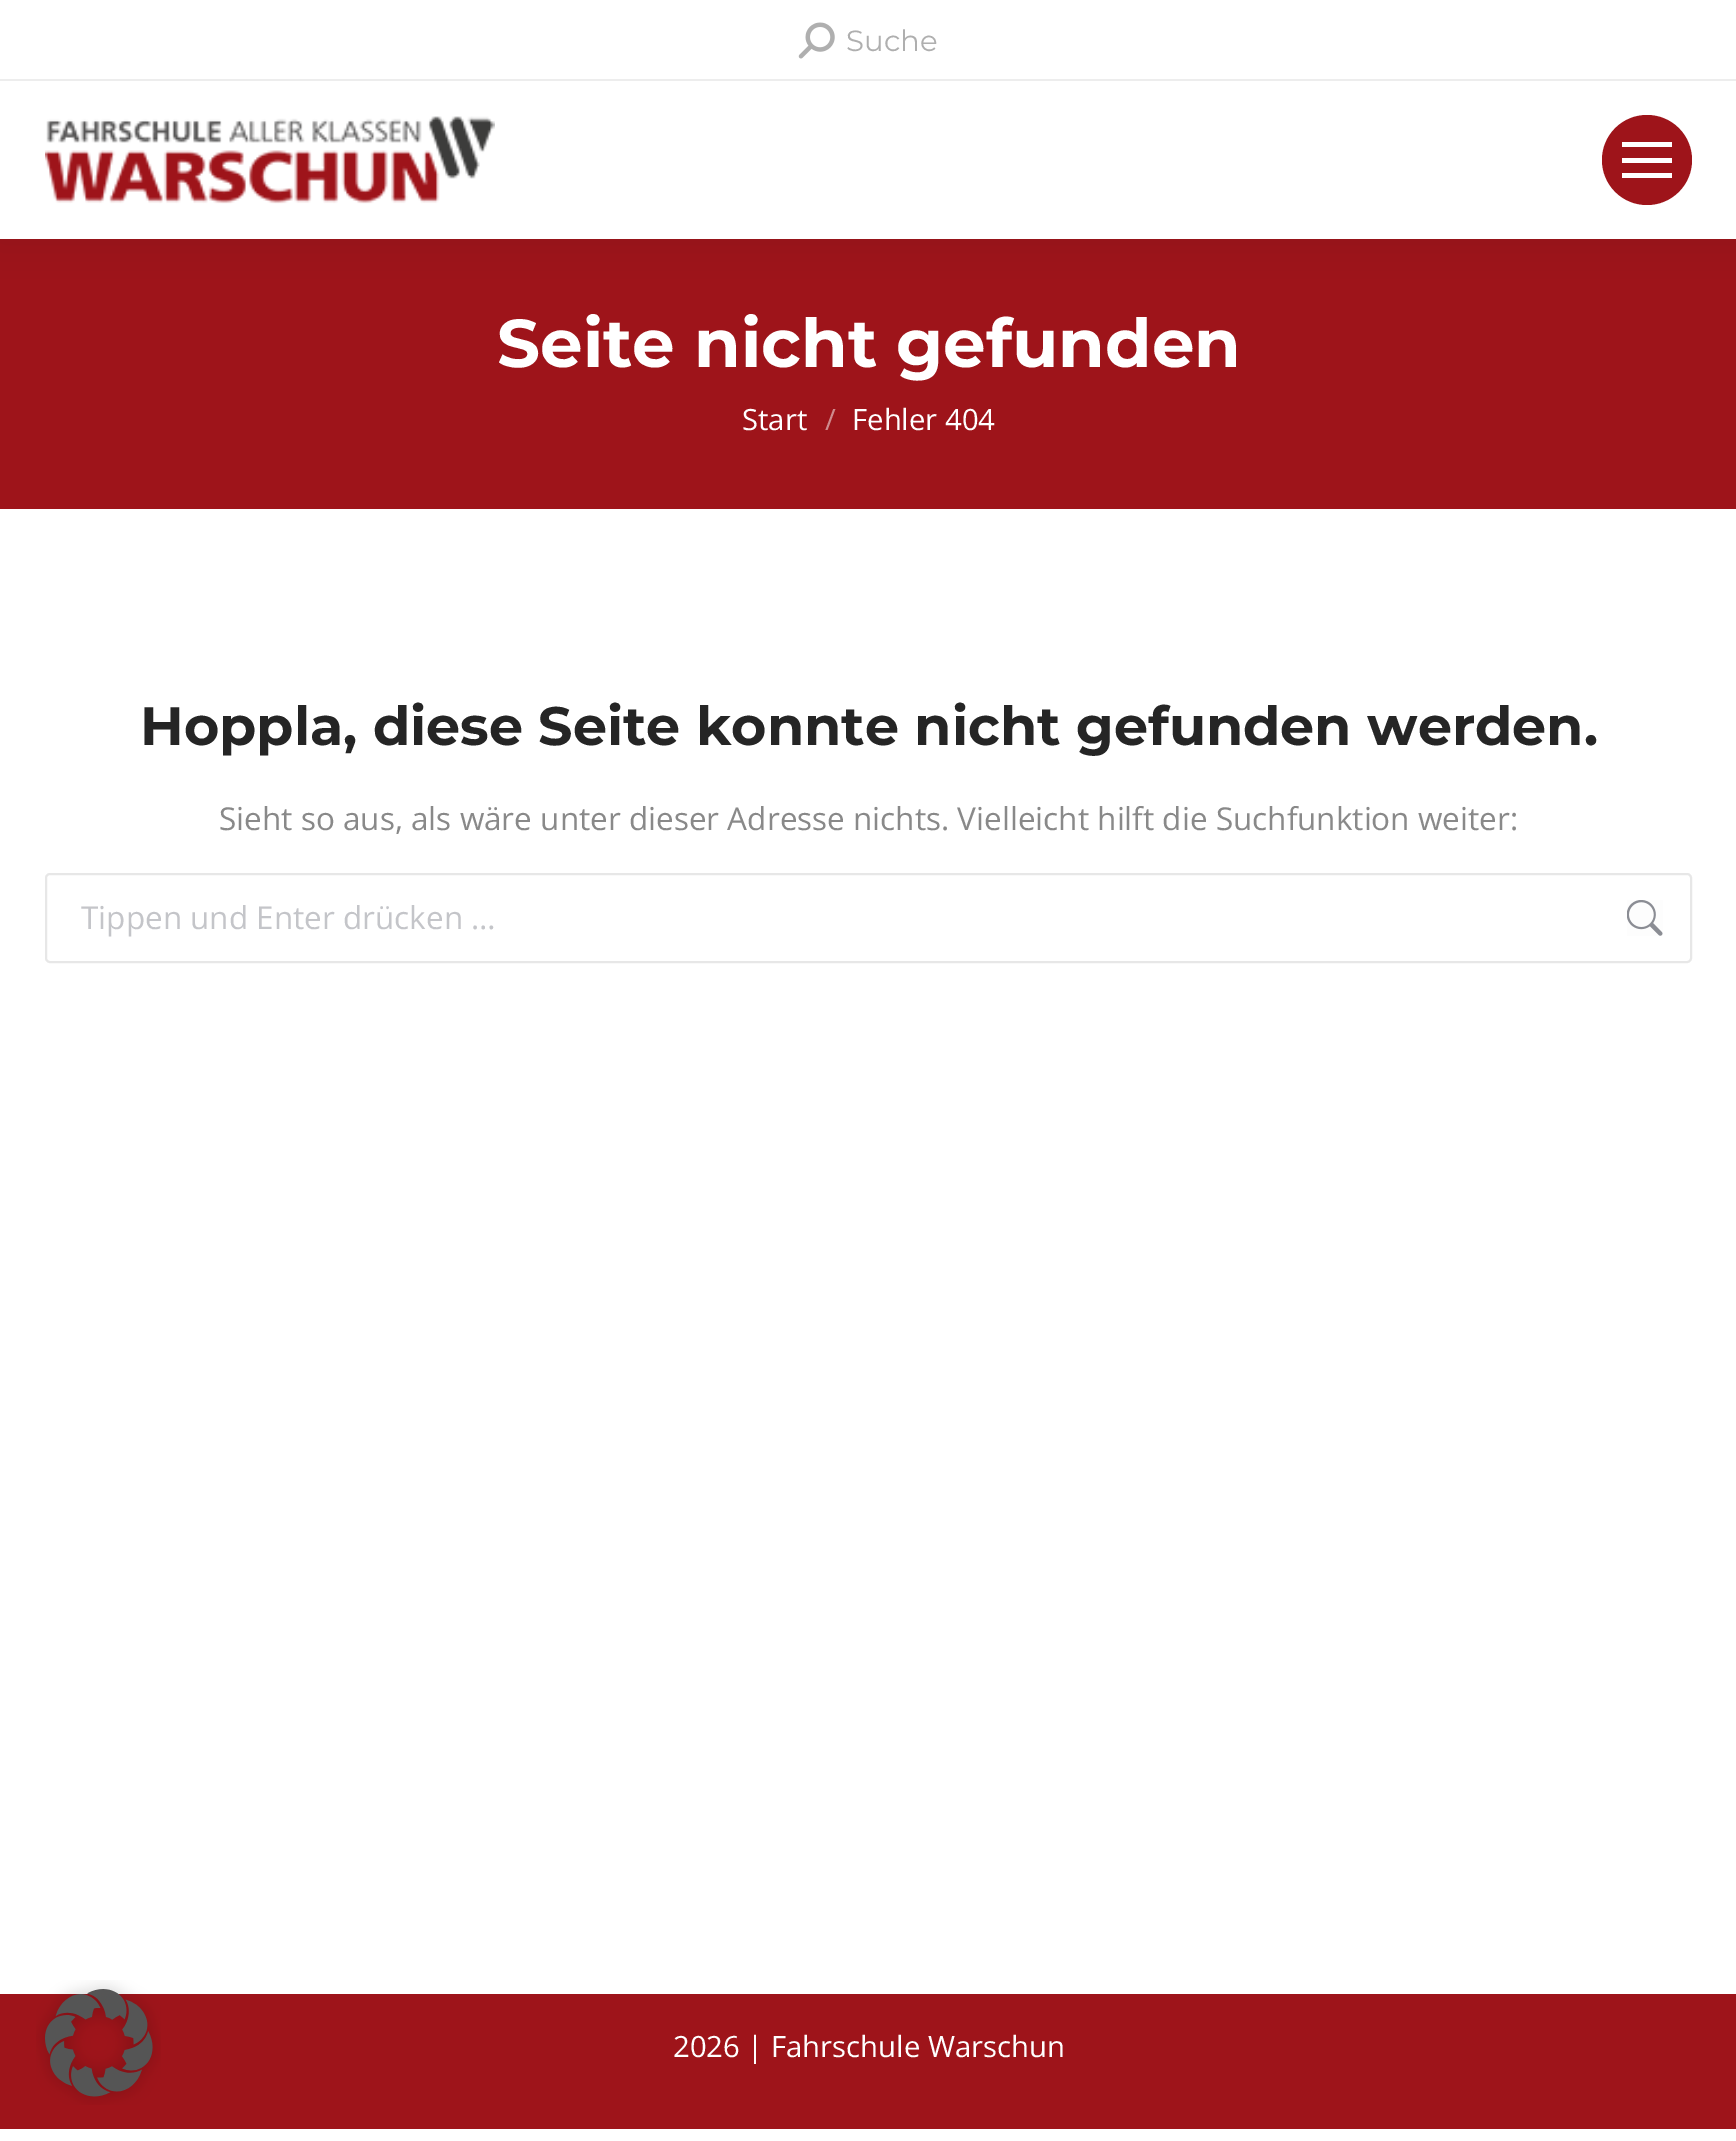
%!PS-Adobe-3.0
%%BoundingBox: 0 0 1736 2141
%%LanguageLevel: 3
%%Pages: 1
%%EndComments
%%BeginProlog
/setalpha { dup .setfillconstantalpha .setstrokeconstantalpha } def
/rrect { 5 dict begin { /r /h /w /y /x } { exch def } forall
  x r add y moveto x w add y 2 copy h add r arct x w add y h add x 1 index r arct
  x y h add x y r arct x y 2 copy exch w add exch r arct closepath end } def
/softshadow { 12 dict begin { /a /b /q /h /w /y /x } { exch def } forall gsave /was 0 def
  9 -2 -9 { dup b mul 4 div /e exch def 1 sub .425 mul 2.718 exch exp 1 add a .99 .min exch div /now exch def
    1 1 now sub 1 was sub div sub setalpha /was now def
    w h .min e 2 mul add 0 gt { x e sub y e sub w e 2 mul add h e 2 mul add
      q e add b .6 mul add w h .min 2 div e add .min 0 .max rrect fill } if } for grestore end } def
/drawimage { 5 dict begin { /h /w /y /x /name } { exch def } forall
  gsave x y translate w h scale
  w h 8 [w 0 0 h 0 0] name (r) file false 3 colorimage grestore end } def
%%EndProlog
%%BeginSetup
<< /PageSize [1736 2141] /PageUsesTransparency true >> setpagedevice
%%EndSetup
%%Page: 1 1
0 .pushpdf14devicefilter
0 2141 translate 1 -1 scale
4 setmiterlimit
1 setgray
0 0 1736 2141 rectfill
0.62 0.078 0.102 setrgbcolor
0 239 1736 270 rectfill
0 setgray
-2 -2 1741 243 0 17 0.07 softshadow
1 setgray
0 0 1736 239 rectfill
(images/1.raw) 798 22 37 37 drawimage
0.929 setgray
0 79 1736 2 rectfill
(images/2.raw) 45 116 450 88 drawimage
0.62 0.078 0.102 setrgbcolor
newpath 1647 160 45 0 360 arc closepath fill
1 setgray
1622 142 50 5 rectfill
1622 158 50 5 rectfill
1622 173 50 5 rectfill
0.906 setgray
2 setlinewidth
46 874 1645 88 4 rrect stroke
(images/3.raw) 1627 900 36 36 drawimage
0.62 0.078 0.102 setrgbcolor
0 1994 1736 135 rectfill
(images/4.raw) 36 1980 125 125 drawimage
/Montserrat-Regular [29.25 0 0 -29.25 0 0] selectfont
0.686 setgray
846 51 moveto (Suche) show
/Montserrat-Bold [67.5 0 0 -67.5 0 0] selectfont
1 setgray
497 367 moveto (Seite nicht gefunden) show
/OpenSans-Regular [29.25 0 0 -29.25 0 0] selectfont
742 430 moveto (Start) show
0.812 0.541 0.553 setrgbcolor
825 430 moveto (/) show
1 setgray
852 430 moveto (Fehler 404) show
/Montserrat-Bold [54 0 0 -54 0 0] selectfont
0.145 setgray
140 745 moveto (Hoppla, diese Seite konnte nicht gefunden werden.) show
/OpenSans-Regular [31.5 0 0 -31.5 0 0] selectfont
0.537 setgray
219 830 moveto (Sieht so aus, als wäre unter dieser Adresse nichts. Vielleicht hilft die Suchfunktion weiter:) show
0.769 0.773 0.788 setrgbcolor
81 929 moveto (Tippen und Enter drücken …) show
/OpenSans-Regular [29.25 0 0 -29.25 0 0] selectfont
1 setgray
673 2057 moveto (2026 | Fahrschule Warschun) show
.poppdf14devicefilter showpage
%%EOF
